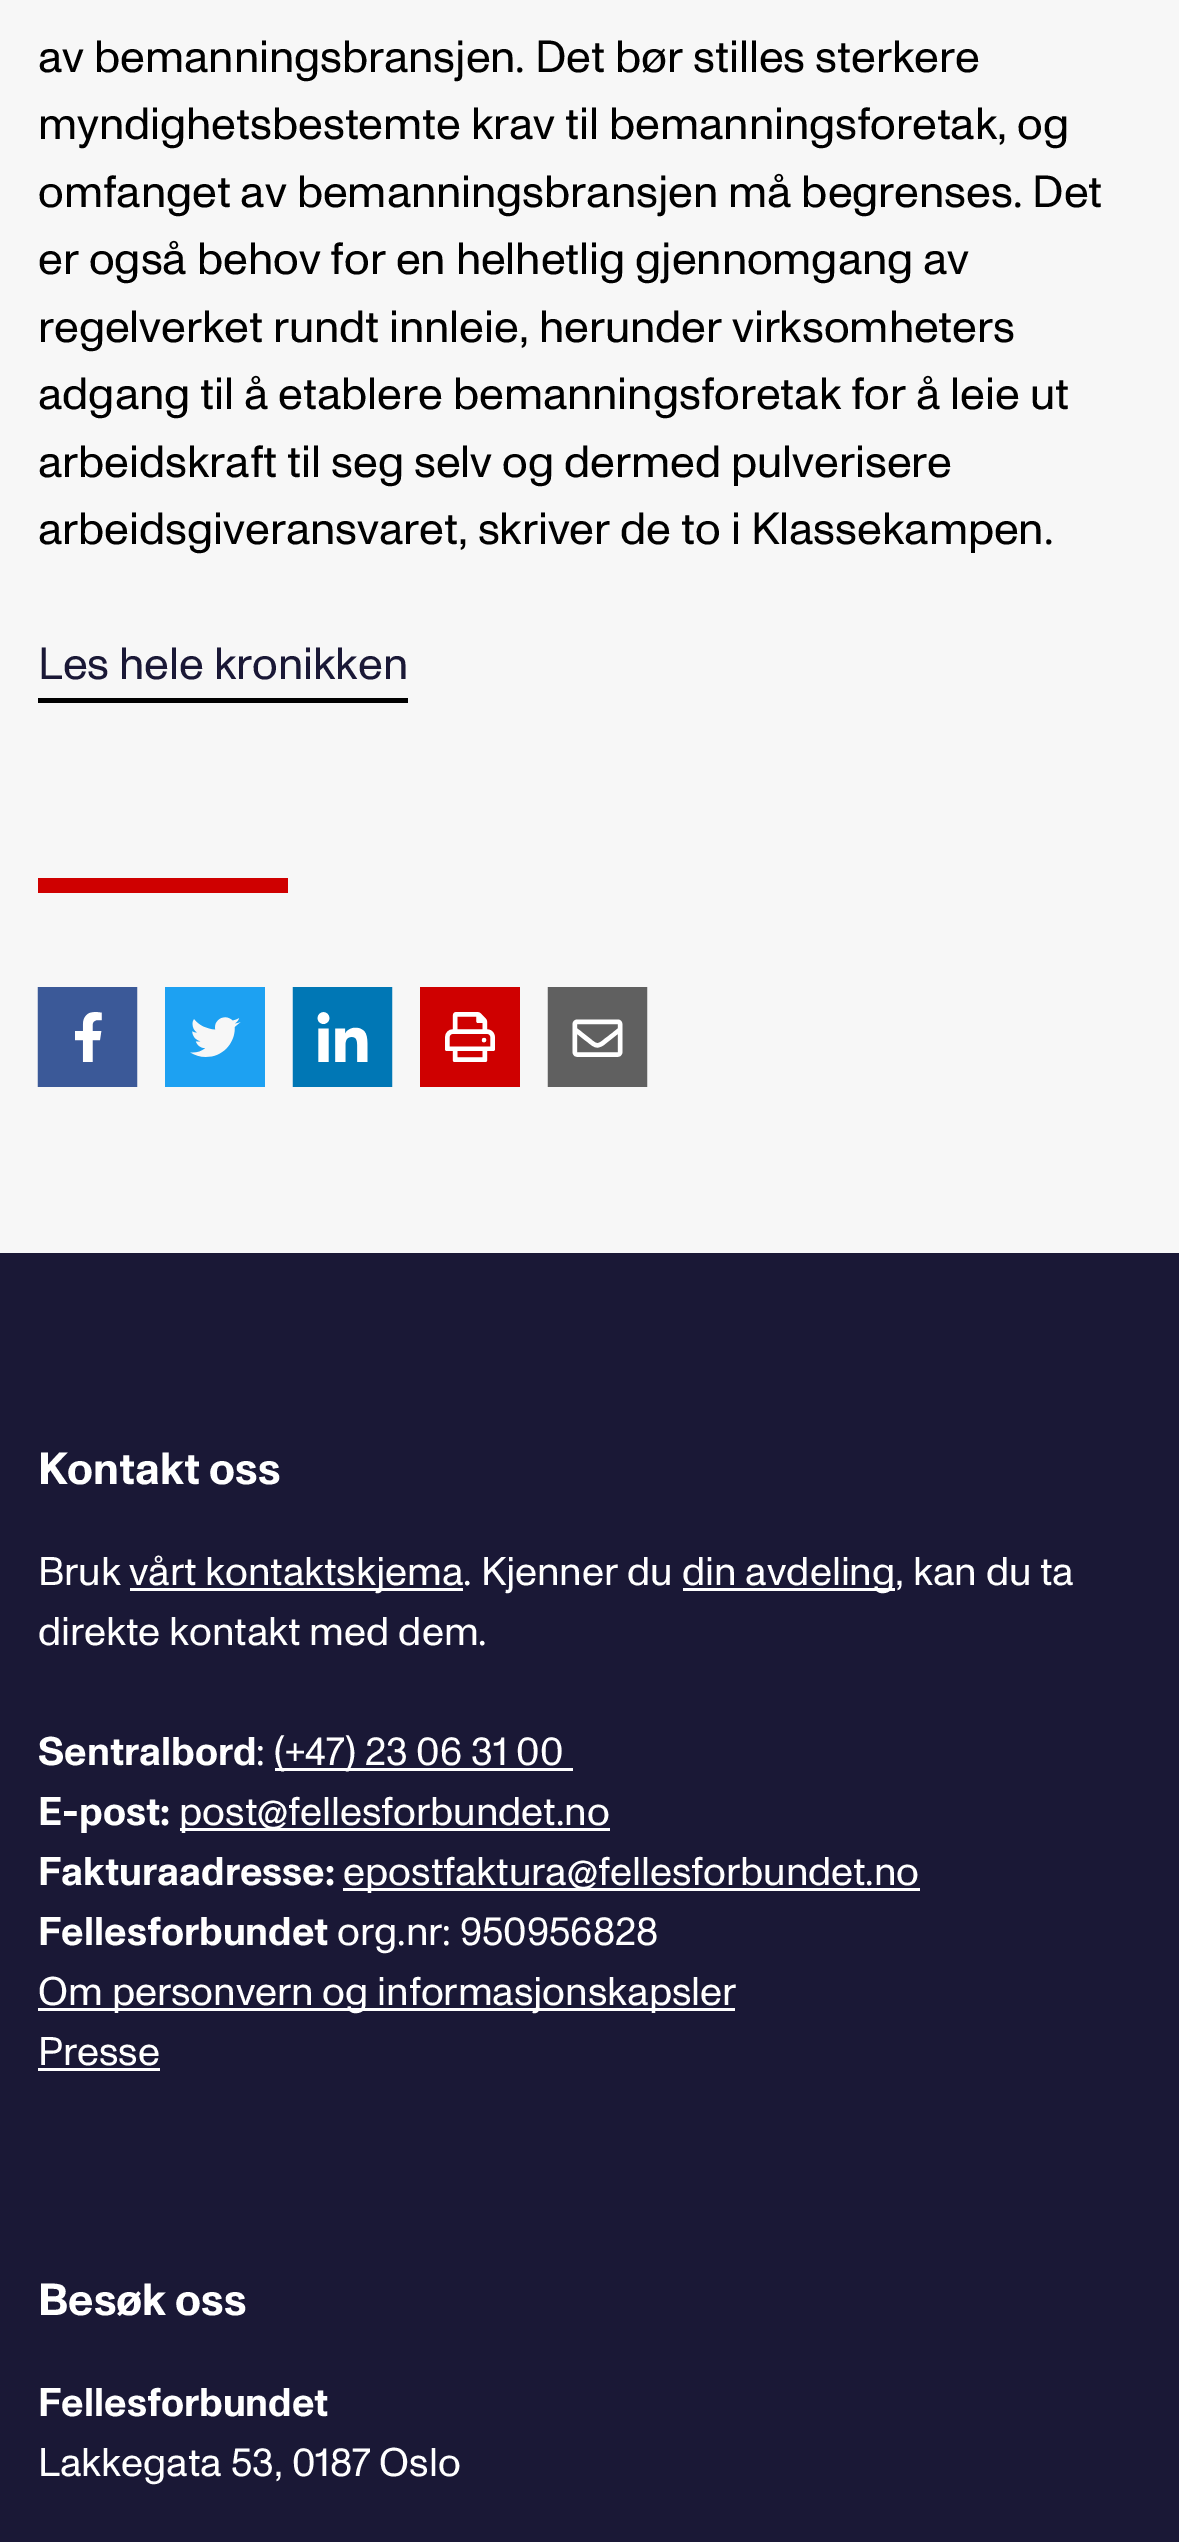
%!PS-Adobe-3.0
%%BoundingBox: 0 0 1179 2542
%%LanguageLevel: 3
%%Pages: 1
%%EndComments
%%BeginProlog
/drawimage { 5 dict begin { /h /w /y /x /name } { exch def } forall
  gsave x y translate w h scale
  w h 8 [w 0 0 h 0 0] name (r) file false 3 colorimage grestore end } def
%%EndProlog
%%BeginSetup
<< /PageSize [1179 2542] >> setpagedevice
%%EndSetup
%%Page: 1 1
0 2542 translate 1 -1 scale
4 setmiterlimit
0.969 setgray
0 0 1179 2542 rectfill
0 setgray
38 698 370 5 rectfill
0.812 0 0 setrgbcolor
38 878 250 15 rectfill
(images/1.raw) 37 987 101 100 drawimage
(images/2.raw) 165 987 100 100 drawimage
(images/3.raw) 292 987 101 100 drawimage
(images/4.raw) 420 987 100 100 drawimage
(images/5.raw) 547 987 101 100 drawimage
0.102 0.094 0.212 setrgbcolor
0 1253 1179 1289 rectfill
1 setgray
130 1588 333 3 rectfill
683 1588 212 3 rectfill
275 1768 298 3 rectfill
180 1828 430 3 rectfill
343 1888 577 3 rectfill
38 2008 697 3 rectfill
38 2068 122 3 rectfill
/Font-Regular [45 0 0 -45 0 0] selectfont
0 setgray
38 72 moveto (av bemanningsbransjen. Det bør stilles sterkere) show
38 139 moveto (myndighetsbestemte krav til bemanningsforetak, og) show
38 207 moveto (omfanget av bemanningsbransjen må begrenses. Det) show
38 274 moveto (er også behov for en helhetlig gjennomgang av) show
38 342 moveto (regelverket rundt innleie, herunder virksomheters) show
38 409 moveto (adgang til å etablere bemanningsforetak for å leie ut) show
38 477 moveto (arbeidskraft til seg selv og dermed pulverisere) show
38 544 moveto (arbeidsgiveransvaret, skriver de to i Klassekampen.) show
0.102 0.094 0.212 setrgbcolor
38 679 moveto (Les hele kronikken) show
/Font-Bold [45 0 0 -45 0 0] selectfont
1 setgray
38 1484 moveto (Kontakt oss) show
/Font-Regular [40 0 0 -40 0 0] selectfont
38 1585 moveto (Bruk) show
129 1585 moveto (vårt kontaktskjema. Kjenner du) show
682 1585 moveto (din avdeling, kan du ta) show
38 1645 moveto (direkte kontakt med dem.) show
/Font-Bold [40 0 0 -40 0 0] selectfont
38 1765 moveto (Sentralbord) show
/Font-Regular [40 0 0 -40 0 0] selectfont
256 1765 moveto (:) show
274 1765 moveto (\(+47\) 23 06 31 00) show
/Font-Bold [40 0 0 -40 0 0] selectfont
38 1825 moveto (E-post:) show
/Font-Regular [40 0 0 -40 0 0] selectfont
179 1825 moveto (post@fellesforbundet.no) show
/Font-Bold [40 0 0 -40 0 0] selectfont
38 1885 moveto (Fakturaadresse:) show
/Font-Regular [40 0 0 -40 0 0] selectfont
343 1885 moveto (epostfaktura@fellesforbundet.no) show
/Font-Bold [40 0 0 -40 0 0] selectfont
38 1945 moveto (Fellesforbundet) show
/Font-Regular [40 0 0 -40 0 0] selectfont
337 1945 moveto (org.nr: 950956828) show
38 2005 moveto (Om personvern og informasjonskapsler) show
38 2065 moveto (Presse) show
/Font-Bold [45 0 0 -45 0 0] selectfont
38 2315 moveto (Besøk oss) show
/Font-Bold [40 0 0 -40 0 0] selectfont
38 2416 moveto (Fellesforbundet) show
/Font-Regular [40 0 0 -40 0 0] selectfont
38 2476 moveto (Lakkegata 53, 0187 Oslo) show
showpage
%%EOF
